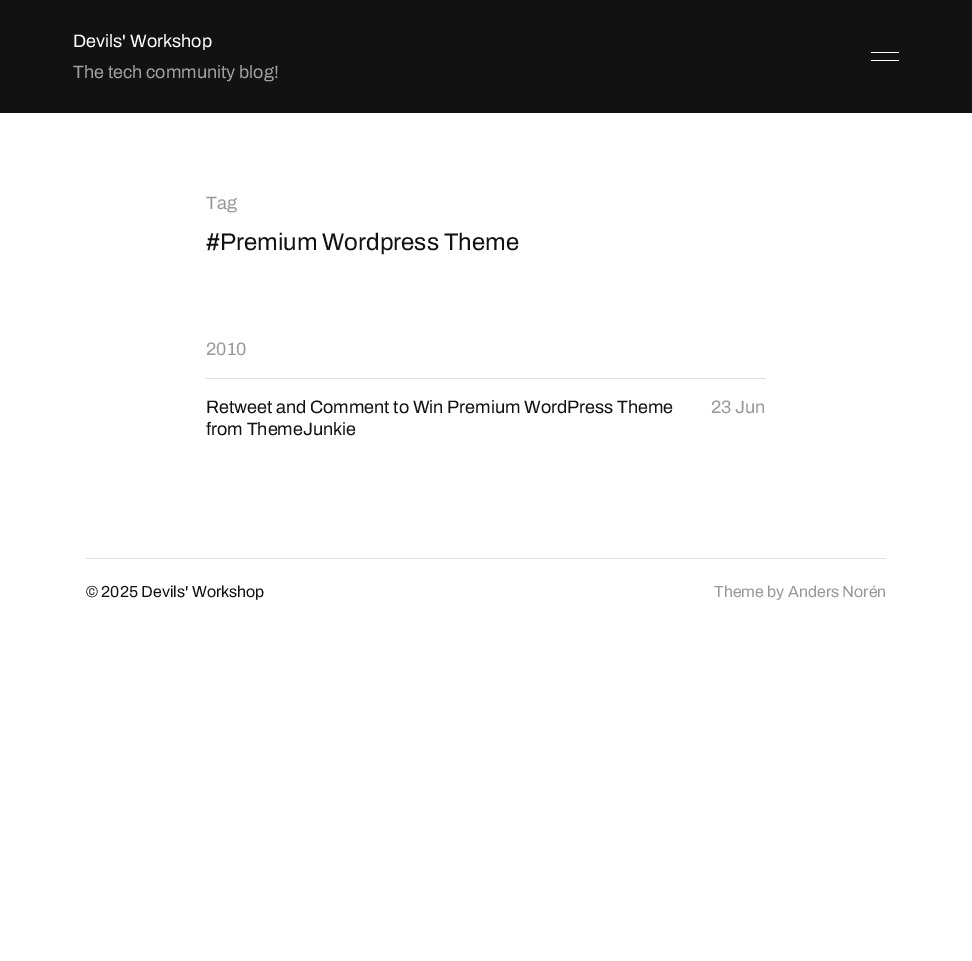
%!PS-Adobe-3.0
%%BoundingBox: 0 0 972 961
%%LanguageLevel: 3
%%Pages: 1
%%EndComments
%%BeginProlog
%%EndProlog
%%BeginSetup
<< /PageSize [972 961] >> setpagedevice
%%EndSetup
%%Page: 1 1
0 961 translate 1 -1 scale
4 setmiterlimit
1 setgray
0 0 972 961 rectfill
0.071 setgray
0 0 972 113 rectfill
1 setgray
871 52 28 1 rectfill
871 60 28 1 rectfill
0.875 0.875 0.878 setrgbcolor
206 378 560 1 rectfill
86 558 800 1 rectfill
/Archivo-SemiBold [18 0 0 -18 0 0] selectfont
1 setgray
73 47 moveto (Devils' Workshop) show
0.627 setgray
73 78 moveto (The tech community blog!) show
0.6 0.6 0.608 setrgbcolor
206 209 moveto (Tag) show
/Archivo-SemiBold [24 0 0 -24 0 0] selectfont
0.071 setgray
206 250 moveto (#Premium Wordpress Theme) show
/Archivo-SemiBold [18 0 0 -18 0 0] selectfont
0.6 0.6 0.608 setrgbcolor
206 355 moveto (2010) show
0.071 setgray
206 413 moveto (Retweet and Comment to Win Premium WordPress Theme) show
206 435 moveto (from ThemeJunkie) show
0.6 0.6 0.608 setrgbcolor
711 413 moveto (23 Jun) show
/Archivo-SemiBold [16 0 0 -16 0 0] selectfont
0.071 setgray
86 597 moveto (© 2025 Devils' Workshop) show
0.6 0.6 0.608 setrgbcolor
714 597 moveto (Theme by Anders Norén) show
showpage
%%EOF
